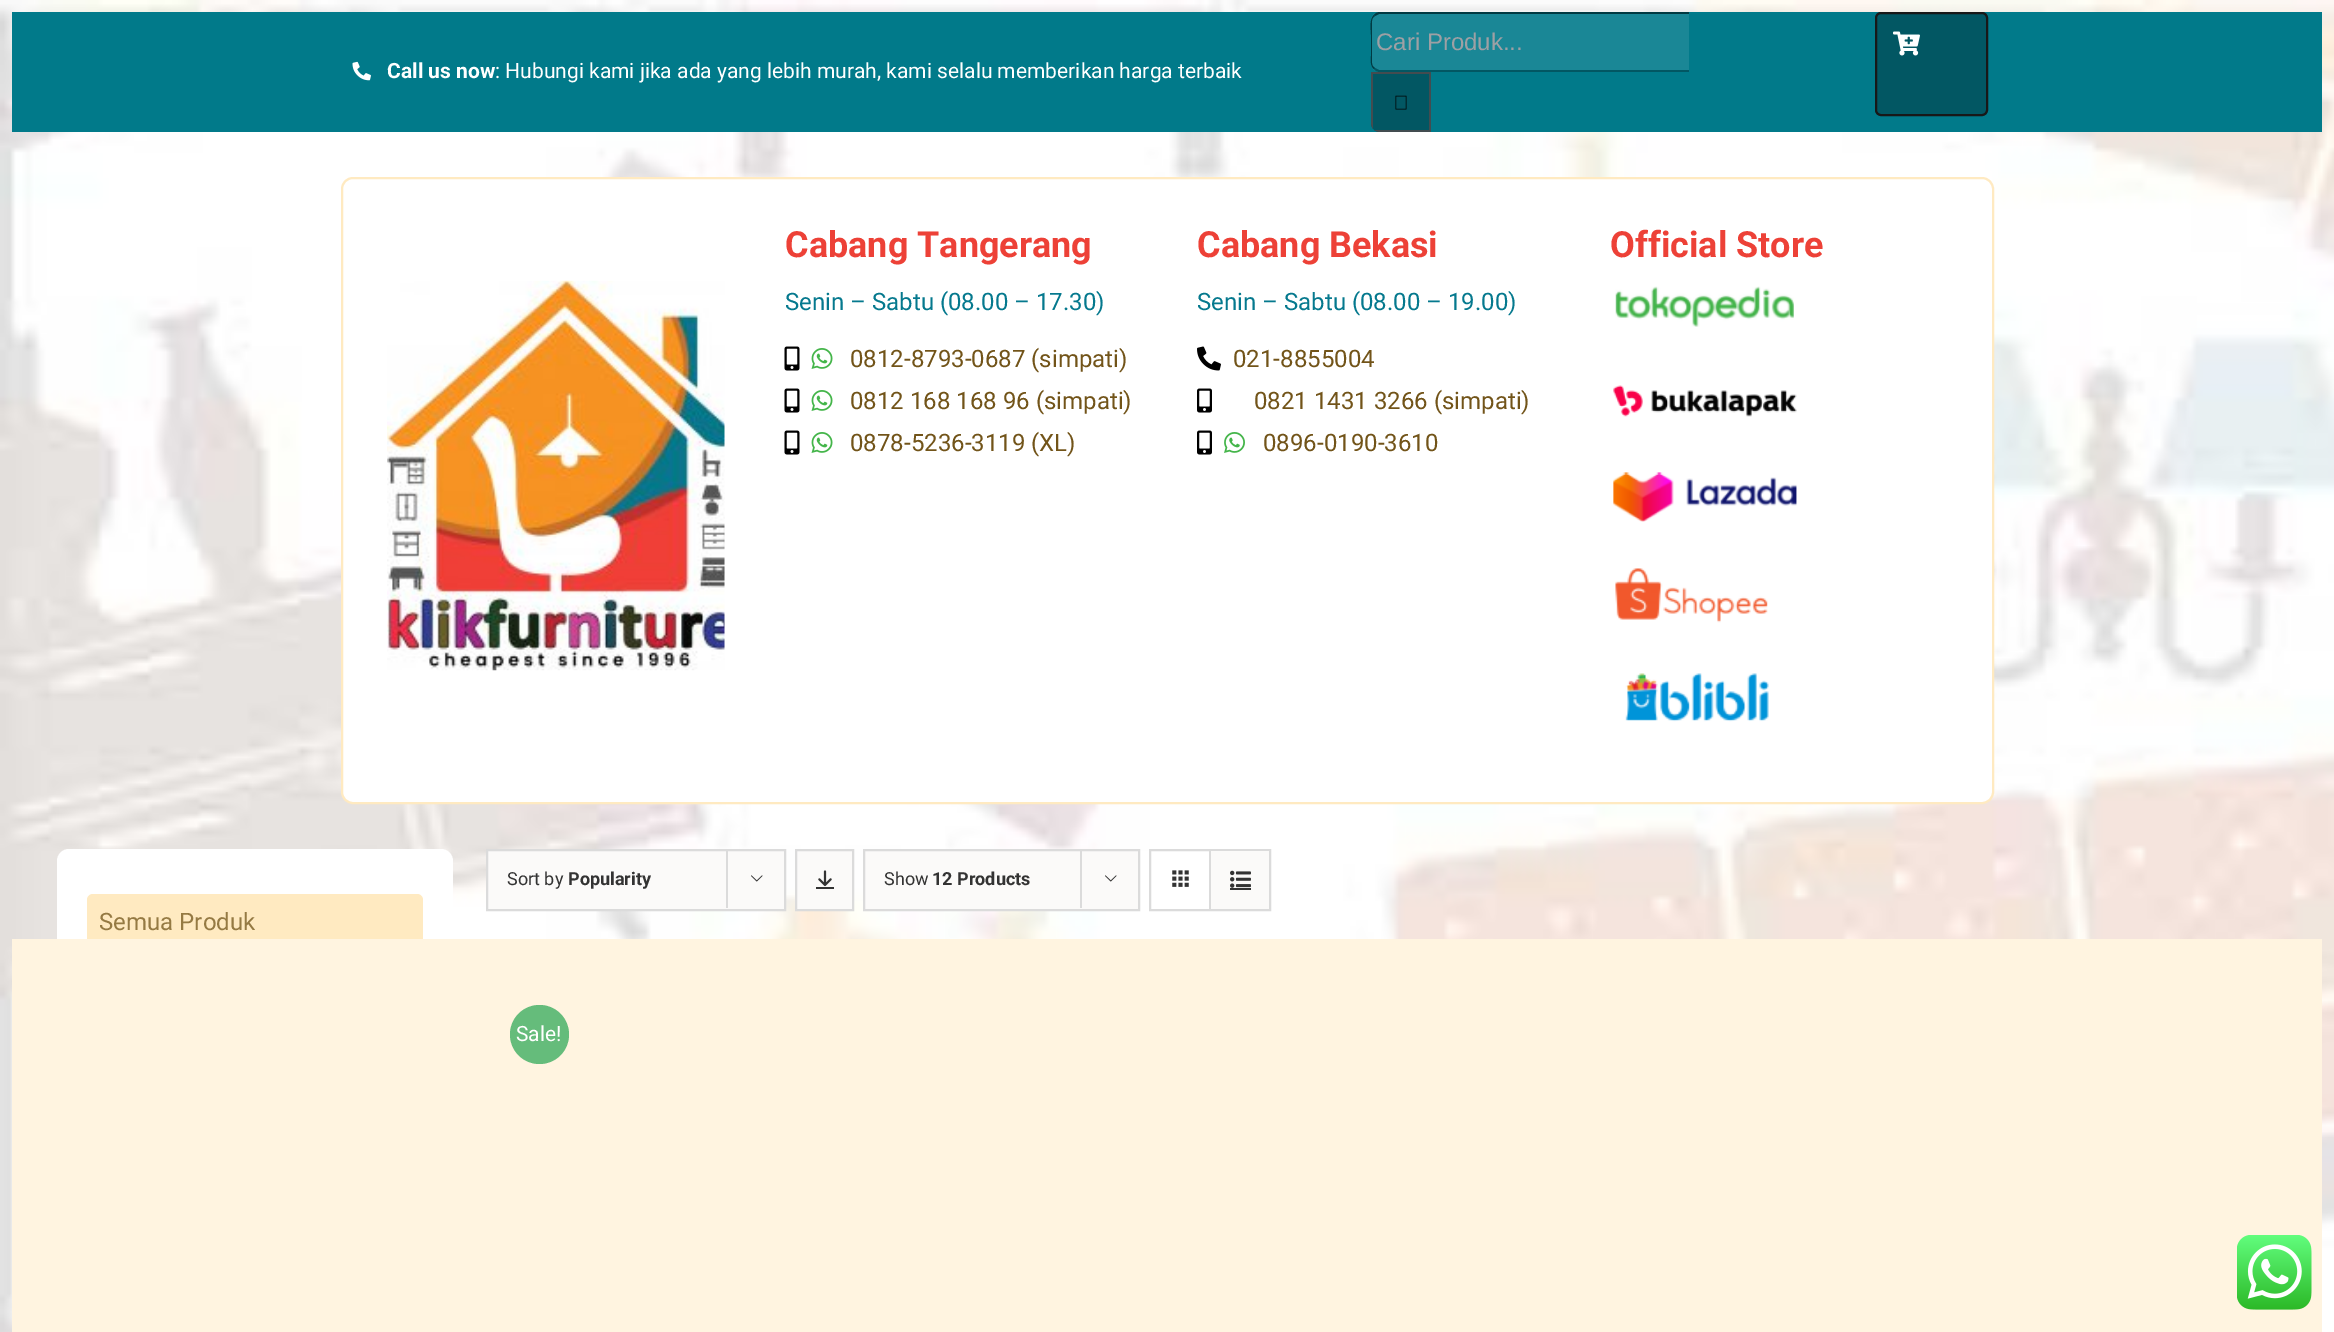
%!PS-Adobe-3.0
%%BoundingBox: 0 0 2334 1332
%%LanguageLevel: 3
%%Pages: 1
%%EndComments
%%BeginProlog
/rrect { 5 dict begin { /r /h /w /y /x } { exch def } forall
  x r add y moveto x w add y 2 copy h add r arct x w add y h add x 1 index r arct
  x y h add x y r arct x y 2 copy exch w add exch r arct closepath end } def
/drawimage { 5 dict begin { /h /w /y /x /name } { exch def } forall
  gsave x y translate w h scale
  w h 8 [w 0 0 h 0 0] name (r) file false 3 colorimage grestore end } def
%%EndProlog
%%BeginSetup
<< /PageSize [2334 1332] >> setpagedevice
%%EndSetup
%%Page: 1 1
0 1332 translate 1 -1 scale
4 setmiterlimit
1 setgray
0 0 2334 1332 rectfill
(images/1.raw) 0 0 2334 1332 drawimage
0.004 0.478 0.541 setrgbcolor
12 12 2310 120 rectfill
0.102 0.529 0.588 setrgbcolor
newpath 1380 12 moveto 1689 12 lineto 1689 72 lineto 1380 72 lineto 1375 72 1371 68 1371 63 curveto 1371 21 lineto 1371 16 1375 12 1380 12 curveto closepath fill
0.004 0.227 0.259 setrgbcolor
newpath 1380 12 moveto 1689 12 lineto 1689 14 lineto 1379 14 lineto 1375 16 lineto 1374 15 lineto 1375 13 1378 12 1380 12 curveto closepath fill
0.008 0.341 0.388 setrgbcolor
newpath 1689 72 moveto 1689 70 lineto 1379 70 lineto 1375 68 lineto 1374 69 lineto 1375 71 1378 72 1380 72 curveto closepath fill
0.004 0.227 0.259 setrgbcolor
newpath 1375 16 moveto 1374 15 lineto 1369 19 1371 30 1371 35 curveto 1371 56 lineto 1371 61 1370 66 1374 69 curveto 1375 68 lineto 1373 67 1372 65 1372 63 curveto 1372 21 lineto 1372 19 1373 17 1375 16 curveto closepath fill
0.008 0.341 0.388 setrgbcolor
newpath 1371 72 moveto 1431 72 lineto 1431 132 lineto 1380 132 lineto 1375 132 1371 128 1371 123 curveto closepath fill
0.263 0.298 0.314 setrgbcolor
newpath 1373 74 moveto 1429 74 lineto 1429 130 lineto 1374 130 lineto 1376 131 1378 132 1380 132 curveto 1431 132 lineto 1431 72 lineto 1371 72 lineto 1371 123 lineto 1371 125 1372 127 1373 129 curveto closepath fill
(images/2.raw) 1395 95 12 15 drawimage
0.008 0.341 0.388 setrgbcolor
1876 13 111 102 5 rrect gsave fill grestore
0.094 setgray
2 setlinewidth
stroke
(images/3.raw) 1893 31 27 25 drawimage
(images/4.raw) 352 61 19 20 drawimage
1 setgray
342 178 1651 625 11 rrect gsave fill grestore
1 0.918 0.757 setrgbcolor
stroke
(images/5.raw) 387 280 338 391 drawimage
(images/6.raw) 784 346 16 25 drawimage
(images/7.raw) 811 348 22 21 drawimage
(images/6.raw) 784 388 16 25 drawimage
(images/7.raw) 811 390 22 21 drawimage
(images/6.raw) 784 430 16 25 drawimage
(images/7.raw) 811 432 22 21 drawimage
(images/8.raw) 1197 346 24 25 drawimage
(images/9.raw) 1197 388 15 25 drawimage
(images/9.raw) 1197 430 15 25 drawimage
(images/10.raw) 1224 432 21 21 drawimage
(images/11.raw) 1615 286 179 41 drawimage
(images/12.raw) 1613 385 184 32 drawimage
(images/13.raw) 1613 472 184 50 drawimage
(images/14.raw) 1615 568 153 55 drawimage
(images/15.raw) 1625 673 144 49 drawimage
1 setgray
57 849 396 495 12 rrect fill
1 0.918 0.757 setrgbcolor
87 894 336 57 6 rrect fill
0.984 0.98 0.976 setrgbcolor
newpath 487 850 moveto 785 850 lineto 785 910 lineto 487 910 lineto closepath gsave fill grestore
0.859 setgray
stroke
726 849 2 59 rectfill
(images/16.raw) 751 875 12 7 drawimage
0.984 0.98 0.976 setrgbcolor
newpath 796 850 moveto 853 850 lineto 853 910 lineto 796 910 lineto closepath gsave fill grestore
0.859 setgray
stroke
(images/17.raw) 818 870 14 17 drawimage
0.2 setgray
816 887 18 2 rectfill
0.984 0.98 0.976 setrgbcolor
newpath 864 850 moveto 1139 850 lineto 1139 910 lineto 864 910 lineto closepath gsave fill grestore
0.859 setgray
stroke
1080 849 2 59 rectfill
(images/16.raw) 1105 875 12 7 drawimage
1150 850 120 60 rectstroke
1209 851 2 58 rectfill
(images/18.raw) 1172 870 17 17 drawimage
0.984 0.98 0.976 setrgbcolor
1211 851 58 58 rectfill
(images/19.raw) 1230 870 21 18 drawimage
0.2 setgray
1230 888 21 2 rectfill
1 0.957 0.878 setrgbcolor
12 939 2310 393 rectfill
0.396 0.737 0.482 setrgbcolor
newpath 539.5 1034.5 29.5 0 360 arc closepath fill
(images/20.raw) 2237 1235 75 75 drawimage
/LiberationSans-Regular [24 0 0 -24 0 0] selectfont
0.62 0.627 0.643 setrgbcolor
1376 50 moveto (Cari Produk...) show
/Roboto-Bold [21 0 0 -21 0 0] selectfont
1 setgray
387 78 moveto (Call us now) show
/Roboto-Regular [21 0 0 -21 0 0] selectfont
495 78 moveto (: Hubungi kami jika ada yang lebih murah, kami selalu memberikan harga terbaik) show
/Roboto-Bold [36 0 0 -36 0 0] selectfont
0.929 0.255 0.216 setrgbcolor
785 257 moveto (Cabang Tangerang) show
/Roboto-Regular [24 0 0 -24 0 0] selectfont
0.02 0.475 0.557 setrgbcolor
785 310 moveto (Senin – Sabtu \(08.00 – 17.30\)) show
0.447 0.329 0.098 setrgbcolor
850 367 moveto (0812-8793-0687 \(simpati\)) show
850 409 moveto (0812 168 168 96 \(simpati\)) show
850 451 moveto (0878-5236-3119 \(XL\)) show
/Roboto-Bold [36 0 0 -36 0 0] selectfont
0.929 0.255 0.216 setrgbcolor
1197 257 moveto (Cabang Bekasi) show
/Roboto-Regular [24 0 0 -24 0 0] selectfont
0.02 0.475 0.557 setrgbcolor
1197 310 moveto (Senin – Sabtu \(08.00 – 19.00\)) show
0.447 0.329 0.098 setrgbcolor
1233 367 moveto (021-8855004) show
1254 409 moveto (0821 1431 3266 \(simpati\)) show
1263 451 moveto (0896-0190-3610) show
/Roboto-Bold [36 0 0 -36 0 0] selectfont
0.929 0.255 0.216 setrgbcolor
1610 257 moveto (Official Store) show
/Roboto-Regular [24 0 0 -24 0 0] selectfont
0.584 0.478 0.263 setrgbcolor
99 930 moveto (Semua Produk) show
/Roboto-Regular [18 0 0 -18 0 0] selectfont
0.2 setgray
507 885 moveto (Sort by) show
/Roboto-Bold [18 0 0 -18 0 0] selectfont
568 885 moveto (Popularity) show
/Roboto-Regular [18 0 0 -18 0 0] selectfont
884 885 moveto (Show) show
/Roboto-Bold [18 0 0 -18 0 0] selectfont
932 885 moveto (12 Products) show
/Roboto-Regular [21 0 0 -21 0 0] selectfont
1 setgray
516 1041 moveto (Sale!) show
showpage
%%EOF
